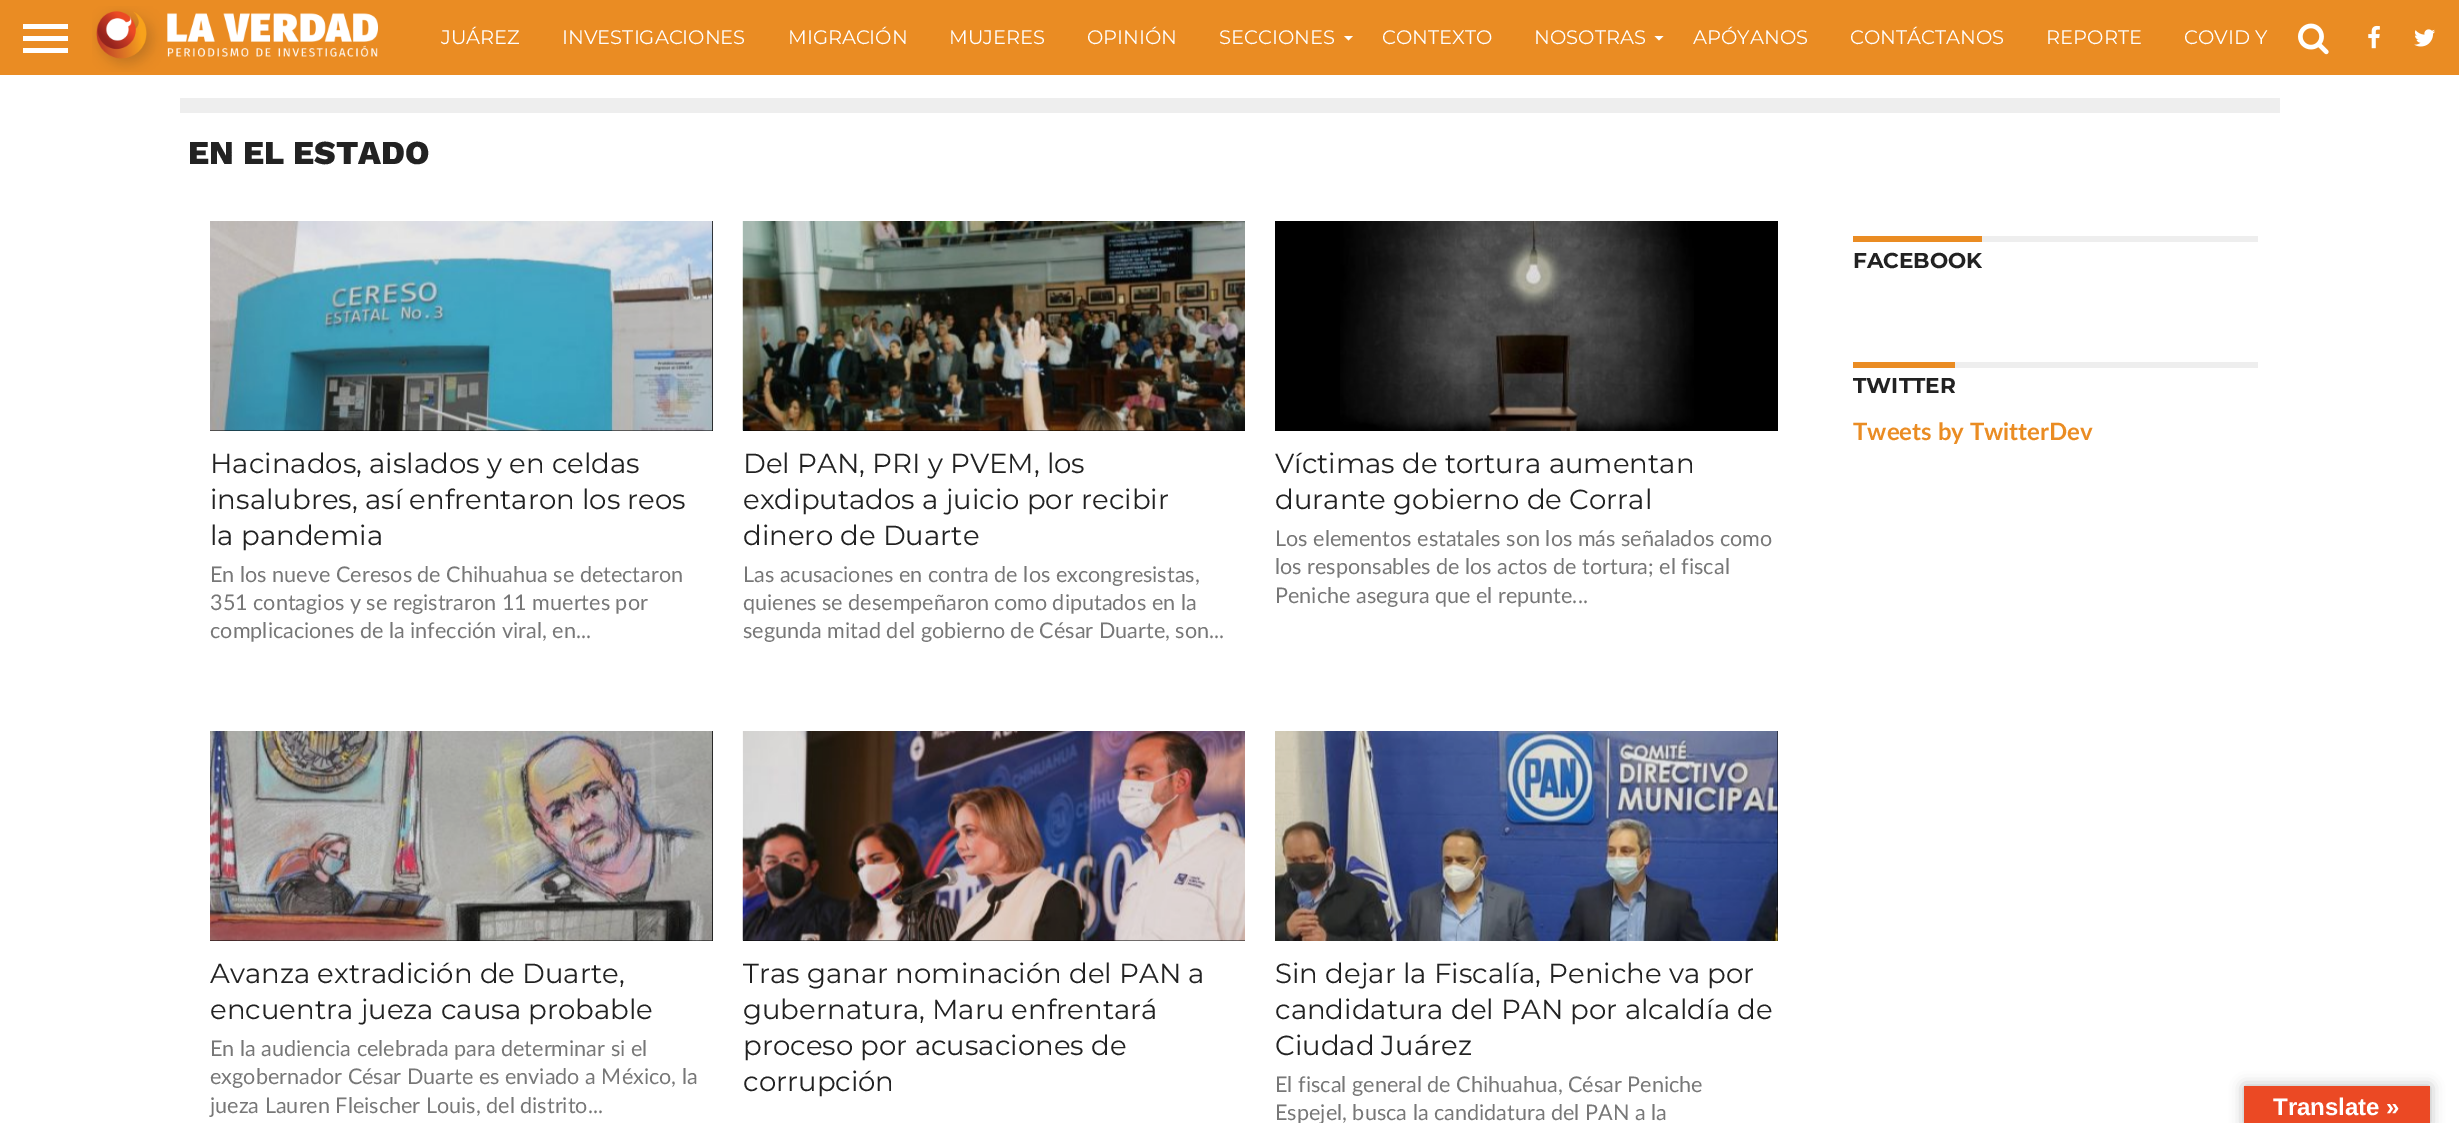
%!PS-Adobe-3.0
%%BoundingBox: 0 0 2459 1123
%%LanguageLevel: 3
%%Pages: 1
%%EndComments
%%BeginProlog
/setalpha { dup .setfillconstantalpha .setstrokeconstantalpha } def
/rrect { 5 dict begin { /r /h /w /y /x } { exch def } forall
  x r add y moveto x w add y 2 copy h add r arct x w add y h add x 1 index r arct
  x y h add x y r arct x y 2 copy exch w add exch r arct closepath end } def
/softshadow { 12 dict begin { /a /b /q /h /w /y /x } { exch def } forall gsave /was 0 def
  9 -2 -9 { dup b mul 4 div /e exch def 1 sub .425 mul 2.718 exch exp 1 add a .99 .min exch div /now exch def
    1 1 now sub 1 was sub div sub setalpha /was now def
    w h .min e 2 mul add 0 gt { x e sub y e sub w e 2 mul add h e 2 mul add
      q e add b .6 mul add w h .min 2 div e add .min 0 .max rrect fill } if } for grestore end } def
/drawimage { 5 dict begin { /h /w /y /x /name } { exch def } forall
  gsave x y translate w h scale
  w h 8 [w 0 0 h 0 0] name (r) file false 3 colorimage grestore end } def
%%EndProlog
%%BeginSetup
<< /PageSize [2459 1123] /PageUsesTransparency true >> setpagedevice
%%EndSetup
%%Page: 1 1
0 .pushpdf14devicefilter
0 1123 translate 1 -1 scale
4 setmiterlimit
1 setgray
0 0 2459 1123 rectfill
0.918 0.549 0.137 setrgbcolor
0 0 2459 75 rectfill
1 setgray
23 24 45 5 rectfill
23 36 45 5 rectfill
23 48 45 5 rectfill
(images/1.raw) 92 6 286 66 drawimage
newpath 1344 36 moveto 1353 36 lineto 1348.5 40.5 lineto closepath fill
newpath 1654.5 36 moveto 1663.5 36 lineto 1659 40.5 lineto closepath fill
(images/2.raw) 2298 23 31 32 drawimage
(images/3.raw) 2368 25 12 24 drawimage
(images/4.raw) 2414 29 21 18 drawimage
0.933 setgray
180 98 2100 15 rectfill
1982 236 276 6 rectfill
0.918 0.549 0.137 setrgbcolor
1853 236 129 6 rectfill
0.933 setgray
1955 362 303 6 rectfill
0.918 0.549 0.137 setrgbcolor
1853 362 102 6 rectfill
0 setgray
210 221 503 210 rectfill
(images/5.raw) 210 221 503 210 drawimage
743 221 502 210 rectfill
(images/6.raw) 742 221 503 210 drawimage
1275 221 503 210 rectfill
(images/7.raw) 1340 221 354 210 drawimage
210 731 503 210 rectfill
(images/8.raw) 210 731 503 210 drawimage
743 731 502 210 rectfill
(images/9.raw) 742 731 503 210 drawimage
1275 731 503 210 rectfill
(images/10.raw) 1275 731 503 210 drawimage
2244 1086 186 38 0 7 0.3 softshadow
0.922 0.286 0.141 setrgbcolor
2244 1086 186 37 rectfill
/Montserrat-Regular [19.5 0 0 -19.5 0 0] selectfont
1 setgray
441 44 moveto (JUÁREZ) show
562 44 moveto (INVESTIGACIONES) show
788 44 moveto (MIGRACIÓN) show
949 44 moveto (MUJERES) show
1087 44 moveto (OPINIÓN) show
1219 44 moveto (SECCIONES) show
1382 44 moveto (CONTEXTO) show
1534 44 moveto (NOSOTRAS) show
1693 44 moveto (APÓYANOS) show
1850 44 moveto (CONTÁCTANOS) show
2046 44 moveto (REPORTE) show
2184 44 moveto (COVID Y) show
/WorkSans-ExtraBold [33.5 0 0 -33.5 0 0] selectfont
0.133 setgray
188 164 moveto (EN EL ESTADO) show
/Montserrat-Bold [21.6 0 0 -21.6 0 0] selectfont
1853 268 moveto (FACEBOOK) show
1853 393 moveto (TWITTER) show
/Lato-Bold [24 0 0 -24 0 0] selectfont
0.918 0.549 0.137 setrgbcolor
1853 440 moveto (Tweets by TwitterDev) show
/Montserrat-Regular [27.6 0 0 -27.6 0 0] selectfont
0.133 setgray
210 473 moveto (Hacinados, aislados y en celdas) show
210 509 moveto (insalubres, así enfrentaron los reos) show
210 545 moveto (la pandemia) show
/Lato-Regular [21.6 0 0 -21.6 0 0] selectfont
0.467 setgray
210 582 moveto (En los nueve Ceresos de Chihuahua se detectaron) show
210 610 moveto (351 contagios y se registraron 11 muertes por) show
210 638 moveto (complicaciones de la infección viral, en...) show
/Montserrat-Regular [27.6 0 0 -27.6 0 0] selectfont
0.133 setgray
743 473 moveto (Del PAN, PRI y PVEM, los) show
743 509 moveto (exdiputados a juicio por recibir) show
743 545 moveto (dinero de Duarte) show
/Lato-Regular [21.6 0 0 -21.6 0 0] selectfont
0.467 setgray
743 582 moveto (Las acusaciones en contra de los excongresistas,) show
743 610 moveto (quienes se desempeñaron como diputados en la) show
743 638 moveto (segunda mitad del gobierno de César Duarte, son...) show
/Montserrat-Regular [27.6 0 0 -27.6 0 0] selectfont
0.133 setgray
1275 473 moveto (Víctimas de tortura aumentan) show
1275 509 moveto (durante gobierno de Corral) show
/Lato-Regular [21.6 0 0 -21.6 0 0] selectfont
0.467 setgray
1275 546 moveto (Los elementos estatales son los más señalados como) show
1275 574 moveto (los responsables de los actos de tortura; el fiscal) show
1275 603 moveto (Peniche asegura que el repunte...) show
/Montserrat-Regular [27.6 0 0 -27.6 0 0] selectfont
0.133 setgray
210 983 moveto (Avanza extradición de Duarte,) show
210 1019 moveto (encuentra jueza causa probable) show
/Lato-Regular [21.6 0 0 -21.6 0 0] selectfont
0.467 setgray
210 1056 moveto (En la audiencia celebrada para determinar si el) show
210 1084 moveto (exgobernador César Duarte es enviado a México, la) show
210 1113 moveto (jueza Lauren Fleischer Louis, del distrito...) show
/Montserrat-Regular [27.6 0 0 -27.6 0 0] selectfont
0.133 setgray
743 983 moveto (Tras ganar nominación del PAN a) show
743 1019 moveto (gubernatura, Maru enfrentará) show
743 1055 moveto (proceso por acusaciones de) show
743 1091 moveto (corrupción) show
1275 983 moveto (Sin dejar la Fiscalía, Peniche va por) show
1275 1019 moveto (candidatura del PAN por alcaldía de) show
1275 1055 moveto (Ciudad Juárez) show
/Lato-Regular [21.6 0 0 -21.6 0 0] selectfont
0.467 setgray
1275 1092 moveto (El fiscal general de Chihuahua, César Peniche) show
1275 1120 moveto (Espejel, busca la candidatura del PAN a la) show
/LiberationSans-Bold [24 0 0 -24 0 0] selectfont
1 setgray
2273 1115 moveto (Translate ») show
.poppdf14devicefilter showpage
%%EOF
